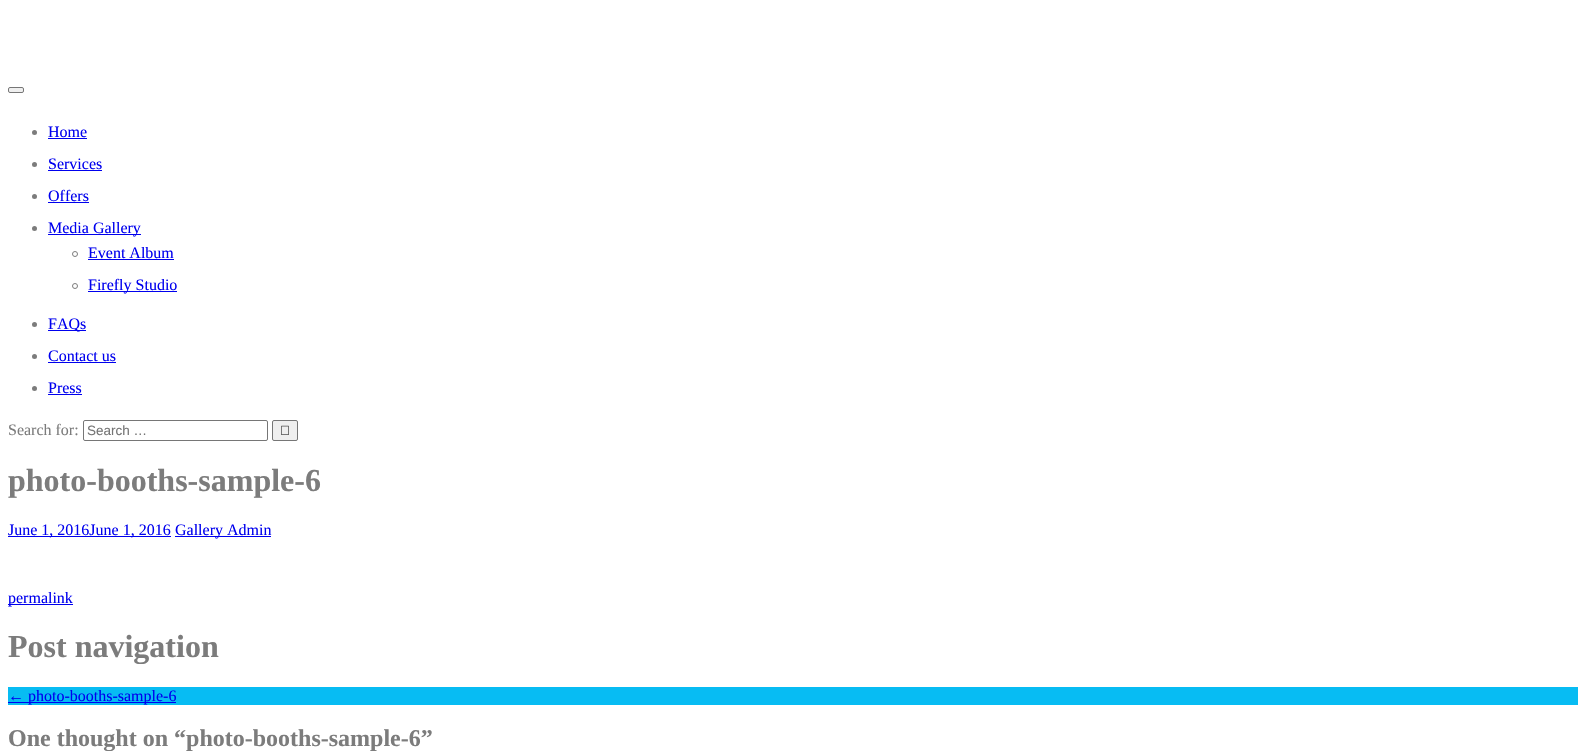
#include "include/core/SkBlurTypes.h"
#include "include/core/SkCanvas.h"
#include "include/core/SkData.h"
#include "include/core/SkFont.h"
#include "include/core/SkFontMgr.h"
#include "include/core/SkImage.h"
#include "include/core/SkMaskFilter.h"
#include "include/core/SkPaint.h"
#include "include/core/SkPathBuilder.h"
#include "include/core/SkTextBlob.h"
#include "include/effects/SkDashPathEffect.h"
#include "include/effects/SkGradientShader.h"
#include "include/utils/SkParsePath.h"

extern sk_sp<SkFontMgr> fontMgr;

void draw(SkCanvas* canvas) {
  SkPaint p;
  p.setAntiAlias(true);
  canvas->clear(SK_ColorWHITE);
  p.setColor(SkColorSetRGB(239, 239, 239));
  canvas->drawRoundRect(SkRect::MakeLTRB(8.5f, 87.5f, 23.5f, 92.5f), 1.5f, 1.5f, p);
  p.setStyle(SkPaint::kStroke_Style);
  p.setStrokeWidth(1);
  p.setColor(SkColorSetRGB(118, 118, 118));
  canvas->drawRoundRect(SkRect::MakeLTRB(8.5f, 87.5f, 23.5f, 92.5f), 1.5f, 1.5f, p);
  p.setStyle(SkPaint::kFill_Style);
  p.setColor(SkColorSetRGB(124, 124, 124));
  canvas->drawCircle(34.5f, 132.5f, 2.5f, p);
  p.setColor(SkColorSetRGB(0, 0, 238));
  canvas->drawRect(SkRect::MakeLTRB(48, 138, 87, 139), p);
  p.setColor(SkColorSetRGB(124, 124, 124));
  canvas->drawCircle(34.5f, 164.5f, 2.5f, p);
  p.setColor(SkColorSetRGB(0, 0, 238));
  canvas->drawRect(SkRect::MakeLTRB(48, 170, 102, 171), p);
  p.setColor(SkColorSetRGB(124, 124, 124));
  canvas->drawCircle(34.5f, 196.5f, 2.5f, p);
  p.setColor(SkColorSetRGB(0, 0, 238));
  canvas->drawRect(SkRect::MakeLTRB(48, 202, 89, 203), p);
  p.setColor(SkColorSetRGB(124, 124, 124));
  canvas->drawCircle(34.5f, 228.5f, 2.5f, p);
  p.setColor(SkColorSetRGB(0, 0, 238));
  canvas->drawRect(SkRect::MakeLTRB(48, 234, 141, 235), p);
  p.setStyle(SkPaint::kStroke_Style);
  p.setColor(SkColorSetRGB(124, 124, 124));
  canvas->drawCircle(75, 254, 2.5f, p);
  p.setStyle(SkPaint::kFill_Style);
  p.setColor(SkColorSetRGB(0, 0, 238));
  canvas->drawRect(SkRect::MakeLTRB(88, 259, 174, 260), p);
  p.setStyle(SkPaint::kStroke_Style);
  p.setColor(SkColorSetRGB(124, 124, 124));
  canvas->drawCircle(75, 286, 2.5f, p);
  p.setStyle(SkPaint::kFill_Style);
  p.setColor(SkColorSetRGB(0, 0, 238));
  canvas->drawRect(SkRect::MakeLTRB(88, 291, 177, 292), p);
  p.setColor(SkColorSetRGB(124, 124, 124));
  canvas->drawCircle(34.5f, 324.5f, 2.5f, p);
  p.setColor(SkColorSetRGB(0, 0, 238));
  canvas->drawRect(SkRect::MakeLTRB(48, 330, 86, 331), p);
  p.setColor(SkColorSetRGB(124, 124, 124));
  canvas->drawCircle(34.5f, 356.5f, 2.5f, p);
  p.setColor(SkColorSetRGB(0, 0, 238));
  canvas->drawRect(SkRect::MakeLTRB(48, 362, 116, 363), p);
  p.setColor(SkColorSetRGB(124, 124, 124));
  canvas->drawCircle(34.5f, 388.5f, 2.5f, p);
  p.setColor(SkColorSetRGB(0, 0, 238));
  canvas->drawRect(SkRect::MakeLTRB(48, 394, 82, 395), p);
  p.setStyle(SkPaint::kStroke_Style);
  p.setColor(SkColorSetRGB(118, 118, 118));
  canvas->drawRoundRect(SkRect::MakeLTRB(83.5f, 420.5f, 267.5f, 440.5f), 1.5f, 1.5f, p);
  p.setStyle(SkPaint::kFill_Style);
  p.setColor(SkColorSetRGB(239, 239, 239));
  canvas->drawRoundRect(SkRect::MakeLTRB(272.5f, 420.5f, 297.5f, 440.5f), 1.5f, 1.5f, p);
  p.setStyle(SkPaint::kStroke_Style);
  p.setColor(SkColorSetRGB(118, 118, 118));
  canvas->drawRoundRect(SkRect::MakeLTRB(272.5f, 420.5f, 297.5f, 440.5f), 1.5f, 1.5f, p);
  canvas->drawImageRect(SkImages::DeferredFromEncodedData(SkData::MakeFromFileName("images/1.png")), SkRect::MakeLTRB(281, 425, 289, 435), SkSamplingOptions());
  p.setStyle(SkPaint::kFill_Style);
  p.setColor(SkColorSetRGB(0, 0, 238));
  canvas->drawRect(SkRect::MakeLTRB(8, 536, 171, 537), p);
  canvas->drawRect(SkRect::MakeLTRB(175, 536, 271, 537), p);
  canvas->drawRect(SkRect::MakeLTRB(8, 604, 73, 605), p);
  p.setColor(SkColorSetRGB(7, 188, 243));
  canvas->drawRect(SkRect::MakeLTRB(8, 687, 1578, 705), p);
  p.setColor(SkColorSetRGB(0, 0, 238));
  canvas->drawRect(SkRect::MakeLTRB(8, 702, 176, 703), p);
  SkFont font1(fontMgr->matchFamilyStyle("Liberation Serif", SkFontStyle::Normal()), 16);
  font1.setSubpixel(true);
  canvas->drawString("Home", 48, 137, font1, p);
  canvas->drawString("Services", 48, 169, font1, p);
  canvas->drawString("Offers", 48, 201, font1, p);
  canvas->drawString("Media Gallery", 48, 233, font1, p);
  canvas->drawString("Event Album", 88, 258, font1, p);
  canvas->drawString("Firefly Studio", 88, 290, font1, p);
  canvas->drawString("FAQs", 48, 329, font1, p);
  canvas->drawString("Contact us", 48, 361, font1, p);
  canvas->drawString("Press", 48, 393, font1, p);
  p.setColor(SkColorSetRGB(124, 124, 124));
  canvas->drawString("Search for:", 8, 435, font1, p);
  SkFont font2(fontMgr->matchFamilyStyle("Liberation Sans", SkFontStyle::Normal()), 13.5f);
  font2.setSubpixel(true);
  p.setColor(SkColorSetRGB(117, 117, 117));
  canvas->drawString("Search …", 87, 435, font2, p);
  SkFont font3(fontMgr->matchFamilyStyle("Liberation Serif", SkFontStyle::Bold()), 32);
  font3.setSubpixel(true);
  p.setColor(SkColorSetRGB(124, 124, 124));
  canvas->drawString("photo-booths-sample-6", 8, 491, font3, p);
  p.setColor(SkColorSetRGB(0, 0, 238));
  canvas->drawString("June 1, 2016June 1, 2016", 8, 535, font1, p);
  canvas->drawString("Gallery Admin", 175, 535, font1, p);
  canvas->drawString("permalink", 8, 603, font1, p);
  p.setColor(SkColorSetRGB(124, 124, 124));
  canvas->drawString("Post navigation", 8, 657, font3, p);
  p.setColor(SkColorSetRGB(0, 0, 238));
  canvas->drawString("← photo-booths-sample-6", 8, 701, font1, p);
  SkFont font4(fontMgr->matchFamilyStyle("Liberation Serif", SkFontStyle::Bold()), 24);
  font4.setSubpixel(true);
  p.setColor(SkColorSetRGB(124, 124, 124));
  canvas->drawString("One thought on “photo-booths-sample-6”", 8, 746, font4, p);
}
